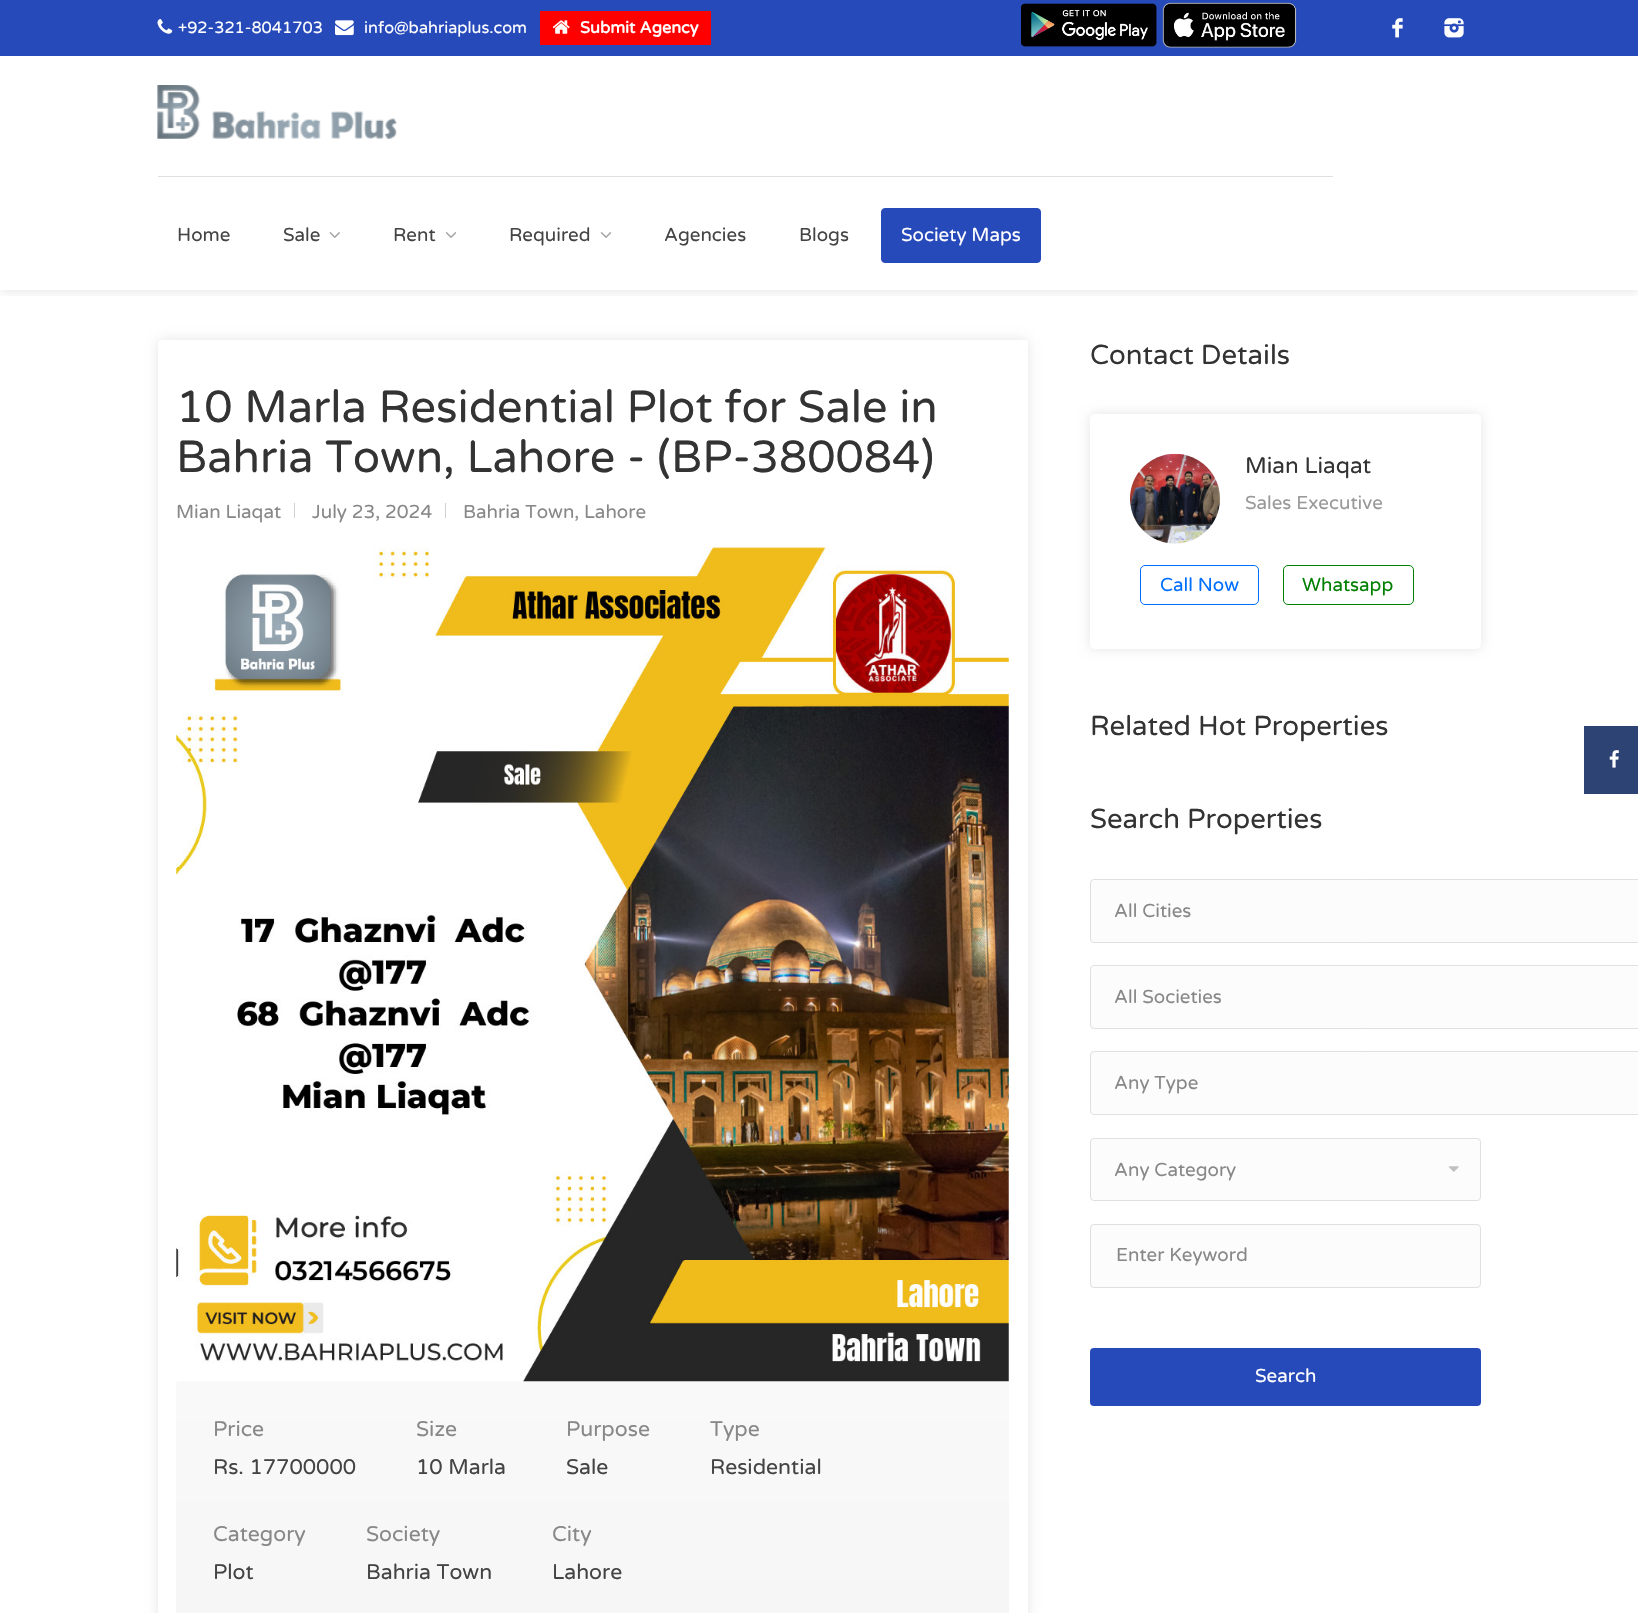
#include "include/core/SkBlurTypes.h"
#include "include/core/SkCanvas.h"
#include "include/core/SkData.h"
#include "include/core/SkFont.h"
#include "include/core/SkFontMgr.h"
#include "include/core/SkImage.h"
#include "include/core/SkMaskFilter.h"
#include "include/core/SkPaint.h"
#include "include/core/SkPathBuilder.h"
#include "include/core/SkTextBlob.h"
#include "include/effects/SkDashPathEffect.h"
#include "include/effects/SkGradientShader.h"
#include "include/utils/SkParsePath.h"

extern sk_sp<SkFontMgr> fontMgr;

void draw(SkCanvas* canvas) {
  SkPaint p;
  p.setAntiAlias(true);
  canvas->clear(SK_ColorWHITE);
  canvas->save();
  canvas->clipRect(SkRect::MakeLTRB(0, 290, 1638, 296));
  p.setColor(SkColorSetARGB(31, 0, 0, 0));
  p.setMaskFilter(SkMaskFilter::MakeBlur(kNormal_SkBlurStyle, 6));
  canvas->drawRect(SkRect::MakeLTRB(0, 56, 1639, 290), p);
  p.setMaskFilter(nullptr);
  canvas->restore();
  p.setColor(SkColorSetRGB(39, 74, 187));
  canvas->drawRect(SkRect::MakeLTRB(0, 0, 1638, 56), p);
  canvas->drawImageRect(SkImages::DeferredFromEncodedData(SkData::MakeFromFileName("images/1.png")), SkRect::MakeLTRB(157, 19, 173, 34), SkSamplingOptions());
  canvas->drawImageRect(SkImages::DeferredFromEncodedData(SkData::MakeFromFileName("images/2.png")), SkRect::MakeLTRB(335, 20, 354, 36), SkSamplingOptions());
  p.setColor(SkColorSetRGB(255, 0, 0));
  canvas->drawRect(SkRect::MakeLTRB(540, 11, 711, 45), p);
  canvas->drawImageRect(SkImages::DeferredFromEncodedData(SkData::MakeFromFileName("images/3.png")), SkRect::MakeLTRB(552, 20, 570, 34), SkSamplingOptions());
  canvas->drawImageRect(SkImages::DeferredFromEncodedData(SkData::MakeFromFileName("images/4.png")), SkRect::MakeLTRB(1021, 3, 1157, 47), SkSamplingOptions());
  canvas->drawImageRect(SkImages::DeferredFromEncodedData(SkData::MakeFromFileName("images/5.png")), SkRect::MakeLTRB(1162, 2, 1297, 48), SkSamplingOptions());
  canvas->drawImageRect(SkImages::DeferredFromEncodedData(SkData::MakeFromFileName("images/6.png")), SkRect::MakeLTRB(1392, 18, 1403, 38), SkSamplingOptions());
  canvas->drawImageRect(SkImages::DeferredFromEncodedData(SkData::MakeFromFileName("images/7.png")), SkRect::MakeLTRB(1444, 18, 1464, 38), SkSamplingOptions());
  canvas->drawImageRect(SkImages::DeferredFromEncodedData(SkData::MakeFromFileName("images/8.png")), SkRect::MakeLTRB(157, 85, 397, 139), SkSamplingOptions());
  p.setColor(SkColorSetRGB(224, 224, 224));
  canvas->drawRect(SkRect::MakeLTRB(158, 176, 1333, 177), p);
  canvas->drawImageRect(SkImages::DeferredFromEncodedData(SkData::MakeFromFileName("images/9.png")), SkRect::MakeLTRB(329, 232, 340, 238), SkSamplingOptions());
  canvas->drawImageRect(SkImages::DeferredFromEncodedData(SkData::MakeFromFileName("images/10.png")), SkRect::MakeLTRB(445, 232, 457, 238), SkSamplingOptions());
  canvas->drawImageRect(SkImages::DeferredFromEncodedData(SkData::MakeFromFileName("images/10.png")), SkRect::MakeLTRB(600, 232, 612, 238), SkSamplingOptions());
  p.setColor(SkColorSetRGB(39, 74, 187));
  canvas->drawRoundRect(SkRect::MakeLTRB(881.5f, 208.5f, 1040.5f, 262.5f), 3.5f, 3.5f, p);
  p.setStyle(SkPaint::kStroke_Style);
  p.setStrokeWidth(1);
  canvas->drawRoundRect(SkRect::MakeLTRB(881.5f, 208.5f, 1040.5f, 262.5f), 3.5f, 3.5f, p);
  p.setStyle(SkPaint::kFill_Style);
  p.setColor(SkColorSetARGB(26, 0, 0, 0));
  p.setMaskFilter(SkMaskFilter::MakeBlur(kNormal_SkBlurStyle, 6));
  canvas->drawRoundRect(SkRect::MakeLTRB(158, 340, 1028, 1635), 4, 4, p);
  p.setMaskFilter(nullptr);
  p.setColor(SK_ColorWHITE);
  canvas->drawRoundRect(SkRect::MakeLTRB(158, 340, 1028, 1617), 4, 4, p);
  p.setColor(SkColorSetRGB(208, 208, 208));
  canvas->drawRect(SkRect::MakeLTRB(294, 503, 295, 518), p);
  canvas->drawRect(SkRect::MakeLTRB(445, 503, 446, 518), p);
  {
    const SkColor colors[] = {SkColorSetRGB(249, 249, 249), SkColorSetRGB(246, 246, 246)};
    const float stops[] = {0, 1};
    const SkPoint ends[] = {{593, 1381}, {593, 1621}};
    p.setShader(SkGradientShader::MakeLinear(ends, colors, stops, 2, SkTileMode::kClamp));
    p.setAlpha(255);
  }
  canvas->drawRoundRect(SkRect::MakeLTRB(176, 1381, 1009, 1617), 4, 4, p);
  canvas->drawImageRect(SkImages::DeferredFromEncodedData(SkData::MakeFromFileName("images/11.png")), SkRect::MakeLTRB(176, 547, 1009, 1382), SkSamplingOptions());
  p.setShader(nullptr);
  p.setColor(SkColorSetARGB(26, 0, 0, 0));
  p.setMaskFilter(SkMaskFilter::MakeBlur(kNormal_SkBlurStyle, 6));
  canvas->drawRoundRect(SkRect::MakeLTRB(1090, 414, 1481, 649), 5, 5, p);
  p.setMaskFilter(nullptr);
  p.setColor(SK_ColorWHITE);
  canvas->drawRoundRect(SkRect::MakeLTRB(1090, 414, 1481, 649), 5, 5, p);
  canvas->drawImageRect(SkImages::DeferredFromEncodedData(SkData::MakeFromFileName("images/12.png")), SkRect::MakeLTRB(1130, 453, 1220, 544), SkSamplingOptions());
  p.setStyle(SkPaint::kStroke_Style);
  p.setColor(SkColorSetRGB(0, 110, 255));
  canvas->drawRoundRect(SkRect::MakeLTRB(1140.5f, 565.5f, 1258.5f, 604.5f), 4.5f, 4.5f, p);
  p.setColor(SkColorSetRGB(0, 128, 0));
  canvas->drawRoundRect(SkRect::MakeLTRB(1283.5f, 565.5f, 1413.5f, 604.5f), 4.5f, 4.5f, p);
  p.setStyle(SkPaint::kFill_Style);
  p.setColor(SkColorSetRGB(252, 252, 252));
  canvas->drawRoundRect(SkRect::MakeLTRB(1090.5f, 879.5f, 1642.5f, 942.5f), 3.5f, 3.5f, p);
  p.setStyle(SkPaint::kStroke_Style);
  p.setColor(SkColorSetRGB(224, 224, 224));
  canvas->drawRoundRect(SkRect::MakeLTRB(1090.5f, 879.5f, 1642.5f, 942.5f), 3.5f, 3.5f, p);
  p.setStyle(SkPaint::kFill_Style);
  p.setColor(SkColorSetRGB(252, 252, 252));
  canvas->drawRoundRect(SkRect::MakeLTRB(1090.5f, 965.5f, 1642.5f, 1028.5f), 3.5f, 3.5f, p);
  p.setStyle(SkPaint::kStroke_Style);
  p.setColor(SkColorSetRGB(224, 224, 224));
  canvas->drawRoundRect(SkRect::MakeLTRB(1090.5f, 965.5f, 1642.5f, 1028.5f), 3.5f, 3.5f, p);
  p.setStyle(SkPaint::kFill_Style);
  p.setColor(SkColorSetRGB(252, 252, 252));
  canvas->drawRoundRect(SkRect::MakeLTRB(1090.5f, 1051.5f, 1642.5f, 1114.5f), 3.5f, 3.5f, p);
  p.setStyle(SkPaint::kStroke_Style);
  p.setColor(SkColorSetRGB(224, 224, 224));
  canvas->drawRoundRect(SkRect::MakeLTRB(1090.5f, 1051.5f, 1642.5f, 1114.5f), 3.5f, 3.5f, p);
  p.setStyle(SkPaint::kFill_Style);
  p.setColor(SkColorSetRGB(252, 252, 252));
  canvas->drawRoundRect(SkRect::MakeLTRB(1090.5f, 1138.5f, 1480.5f, 1200.5f), 3.5f, 3.5f, p);
  p.setStyle(SkPaint::kStroke_Style);
  p.setColor(SkColorSetRGB(224, 224, 224));
  canvas->drawRoundRect(SkRect::MakeLTRB(1090.5f, 1138.5f, 1480.5f, 1200.5f), 3.5f, 3.5f, p);
  canvas->drawImageRect(SkImages::DeferredFromEncodedData(SkData::MakeFromFileName("images/13.png")), SkRect::MakeLTRB(1448, 1166, 1459, 1172), SkSamplingOptions());
  p.setStyle(SkPaint::kFill_Style);
  p.setColor(SkColorSetRGB(252, 252, 252));
  canvas->drawRoundRect(SkRect::MakeLTRB(1090.5f, 1224.5f, 1480.5f, 1287.5f), 3.5f, 3.5f, p);
  p.setStyle(SkPaint::kStroke_Style);
  p.setColor(SkColorSetRGB(224, 224, 224));
  canvas->drawRoundRect(SkRect::MakeLTRB(1090.5f, 1224.5f, 1480.5f, 1287.5f), 3.5f, 3.5f, p);
  p.setStyle(SkPaint::kFill_Style);
  p.setColor(SkColorSetRGB(39, 74, 187));
  canvas->drawRoundRect(SkRect::MakeLTRB(1090, 1348, 1481, 1406), 4, 4, p);
  p.setColor(SkColorSetRGB(45, 67, 115));
  canvas->drawRect(SkRect::MakeLTRB(1584, 726, 1638, 794), p);
  canvas->drawImageRect(SkImages::DeferredFromEncodedData(SkData::MakeFromFileName("images/14.png")), SkRect::MakeLTRB(1609, 750, 1619, 768), SkSamplingOptions());
  SkFont font1(fontMgr->matchFamilyStyle("Varela Round", SkFontStyle::Normal()), 16.25f);
  font1.setSubpixel(true);
  p.setColor(SK_ColorWHITE);
  canvas->drawString("+92-321-8041703", 178, 33, font1, p);
  canvas->drawString("info@bahriaplus.com", 364, 33, font1, p);
  SkFont font2(fontMgr->matchFamilyStyle("Varela Round", SkFontStyle::Bold()), 16.25f);
  font2.setSubpixel(true);
  canvas->drawString("Submit Agency", 580, 33, font2, p);
  SkFont font3(fontMgr->matchFamilyStyle("Varela Round", SkFontStyle::Normal()), 18.75f);
  font3.setSubpixel(true);
  p.setColor(SkColorSetRGB(68, 68, 68));
  canvas->drawString("Home", 177, 241, font3, p);
  canvas->drawString("Sale", 283, 241, font3, p);
  canvas->drawString("Rent", 393, 241, font3, p);
  canvas->drawString("Required", 509, 241, font3, p);
  canvas->drawString("Agencies", 664, 241, font3, p);
  canvas->drawString("Blogs", 799, 241, font3, p);
  p.setColor(SK_ColorWHITE);
  canvas->drawString("Society Maps", 901, 241, font3, p);
  SkFont font4(fontMgr->matchFamilyStyle("Varela Round", SkFontStyle::Normal()), 45);
  font4.setSubpixel(true);
  p.setColor(SkColorSetRGB(51, 51, 51));
  canvas->drawString("10 Marla Residential Plot for Sale in", 176, 422, font4, p);
  canvas->drawString("Bahria Town, Lahore - (BP-380084)", 176, 472, font4, p);
  p.setColor(SkColorSetRGB(136, 136, 136));
  canvas->drawString("Mian Liaqat", 176, 518, font3, p);
  canvas->drawString("July 23, 2024", 312, 518, font3, p);
  canvas->drawString("Bahria Town, Lahore", 463, 518, font3, p);
  SkFont font5(fontMgr->matchFamilyStyle("Varela Round", SkFontStyle::Normal()), 21.25f);
  font5.setSubpixel(true);
  canvas->drawString("Price", 213, 1436, font5, p);
  p.setColor(SkColorSetRGB(68, 68, 68));
  canvas->drawString("Rs. 17700000", 213, 1474, font5, p);
  p.setColor(SkColorSetRGB(136, 136, 136));
  canvas->drawString("Size", 416, 1436, font5, p);
  p.setColor(SkColorSetRGB(68, 68, 68));
  canvas->drawString("10 Marla", 416, 1474, font5, p);
  p.setColor(SkColorSetRGB(136, 136, 136));
  canvas->drawString("Purpose", 566, 1436, font5, p);
  p.setColor(SkColorSetRGB(68, 68, 68));
  canvas->drawString("Sale", 566, 1474, font5, p);
  p.setColor(SkColorSetRGB(136, 136, 136));
  canvas->drawString("Type", 710, 1436, font5, p);
  p.setColor(SkColorSetRGB(68, 68, 68));
  canvas->drawString("Residential", 710, 1474, font5, p);
  p.setColor(SkColorSetRGB(136, 136, 136));
  canvas->drawString("Category", 213, 1541, font5, p);
  p.setColor(SkColorSetRGB(68, 68, 68));
  canvas->drawString("Plot", 213, 1579, font5, p);
  p.setColor(SkColorSetRGB(136, 136, 136));
  canvas->drawString("Society", 366, 1541, font5, p);
  p.setColor(SkColorSetRGB(68, 68, 68));
  canvas->drawString("Bahria Town", 366, 1579, font5, p);
  p.setColor(SkColorSetRGB(136, 136, 136));
  canvas->drawString("City", 552, 1541, font5, p);
  p.setColor(SkColorSetRGB(68, 68, 68));
  canvas->drawString("Lahore", 552, 1579, font5, p);
  SkFont font6(fontMgr->matchFamilyStyle("Varela Round", SkFontStyle::Normal()), 27.5f);
  font6.setSubpixel(true);
  p.setColor(SkColorSetRGB(51, 51, 51));
  canvas->drawString("Contact Details", 1090, 364, font6, p);
  SkFont font7(fontMgr->matchFamilyStyle("Varela Round", SkFontStyle::Normal()), 22.5f);
  font7.setSubpixel(true);
  canvas->drawString("Mian Liaqat", 1245, 473, font7, p);
  p.setColor(SkColorSetRGB(153, 153, 153));
  canvas->drawString("Sales Executive", 1245, 509, font3, p);
  p.setColor(SkColorSetRGB(0, 110, 255));
  canvas->drawString("Call Now", 1160, 591, font3, p);
  p.setColor(SkColorSetRGB(0, 128, 0));
  canvas->drawString("Whatsapp", 1302, 591, font3, p);
  p.setColor(SkColorSetRGB(51, 51, 51));
  canvas->drawString("Related Hot Properties", 1090, 735, font6, p);
  canvas->drawString("Search Properties", 1090, 828, font6, p);
  p.setColor(SkColorSetRGB(136, 136, 136));
  canvas->drawString("All Cities", 1114, 917, font3, p);
  canvas->drawString("All Societies", 1114, 1003, font3, p);
  canvas->drawString("Any Type", 1114, 1089, font3, p);
  canvas->drawString("Any Category", 1114, 1176, font3, p);
  canvas->drawString("Enter Keyword", 1116, 1261, font3, p);
  p.setColor(SK_ColorWHITE);
  canvas->drawString("Search", 1255, 1382, font3, p);
}
